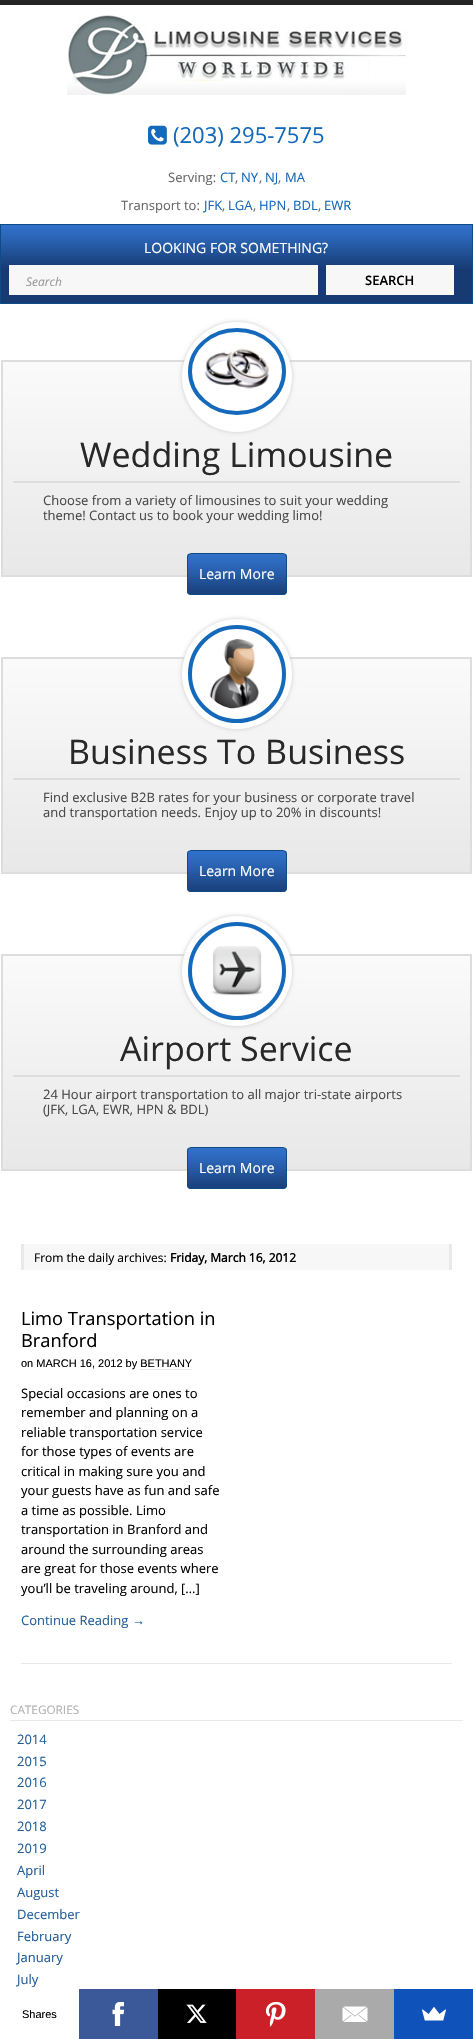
#include "include/core/SkBlurTypes.h"
#include "include/core/SkCanvas.h"
#include "include/core/SkData.h"
#include "include/core/SkFont.h"
#include "include/core/SkFontMgr.h"
#include "include/core/SkImage.h"
#include "include/core/SkMaskFilter.h"
#include "include/core/SkPaint.h"
#include "include/core/SkPathBuilder.h"
#include "include/core/SkTextBlob.h"
#include "include/effects/SkDashPathEffect.h"
#include "include/effects/SkGradientShader.h"
#include "include/utils/SkParsePath.h"

extern sk_sp<SkFontMgr> fontMgr;

void draw(SkCanvas* canvas) {
  SkPaint p;
  p.setAntiAlias(true);
  canvas->clear(SkColorSetRGB(37, 37, 37));
  p.setColor(SK_ColorWHITE);
  canvas->drawRect(SkRect::MakeLTRB(0, 5, 473, 1989), p);
  canvas->drawImageRect(SkImages::DeferredFromEncodedData(SkData::MakeFromFileName("images/1.png")), SkRect::MakeLTRB(67, 15, 406, 95), SkSamplingOptions());
  canvas->drawImageRect(SkImages::DeferredFromEncodedData(SkData::MakeFromFileName("images/2.png")), SkRect::MakeLTRB(148, 125, 167, 145), SkSamplingOptions());
  p.setColor(SkColorSetRGB(22, 58, 113));
  canvas->drawRect(SkRect::MakeLTRB(1, 269, 472, 303), p);
  canvas->drawImageRect(SkImages::DeferredFromEncodedData(SkData::MakeFromFileName("images/3.png")), SkRect::MakeLTRB(1, 225, 472, 269), SkSamplingOptions());
  p.setStyle(SkPaint::kStroke_Style);
  p.setStrokeWidth(1);
  p.setColor(SkColorSetRGB(15, 75, 134));
  canvas->drawRect(SkRect::MakeLTRB(0.5f, 224.5f, 472.5f, 303.5f), p);
  p.setStyle(SkPaint::kFill_Style);
  p.setColor(SkColorSetRGB(247, 247, 247));
  canvas->drawRect(SkRect::MakeLTRB(9, 265, 318, 295), p);
  canvas->drawRect(SkRect::MakeLTRB(326, 265, 454, 295), p);
  canvas->drawImageRect(SkImages::DeferredFromEncodedData(SkData::MakeFromFileName("images/4.png")), SkRect::MakeLTRB(3, 362, 470, 575), SkSamplingOptions());
  p.setStyle(SkPaint::kStroke_Style);
  p.setStrokeWidth(2);
  p.setColor(SkColorSetRGB(221, 221, 221));
  canvas->drawRect(SkRect::MakeLTRB(2, 361, 471, 576), p);
  p.setStyle(SkPaint::kFill_Style);
  p.setColor(SkColorSetRGB(204, 204, 204));
  p.setMaskFilter(SkMaskFilter::MakeBlur(kNormal_SkBlurStyle, 2));
  canvas->drawRoundRect(SkRect::MakeLTRB(182, 322, 292, 432), 55, 55, p);
  p.setMaskFilter(nullptr);
  p.setColor(SK_ColorWHITE);
  canvas->drawCircle(237, 377, 55, p);
  p.setStyle(SkPaint::kStroke_Style);
  p.setStrokeWidth(4);
  p.setColor(SkColorSetRGB(21, 105, 187));
  canvas->drawPath(SkPathBuilder().moveTo(237, 330).cubicTo(263, 330, 284, 348.5f, 284, 371.5f).cubicTo(284, 394.5f, 263, 413, 237, 413).cubicTo(211, 413, 190, 394.5f, 190, 371.5f).cubicTo(190, 348.5f, 211, 330, 237, 330).close().detach(), p);
  canvas->drawImageRect(SkImages::DeferredFromEncodedData(SkData::MakeFromFileName("images/5.png")), SkRect::MakeLTRB(204, 348, 269, 389), SkSamplingOptions());
  p.setStyle(SkPaint::kFill_Style);
  p.setColor(SkColorSetRGB(221, 221, 221));
  canvas->drawRect(SkRect::MakeLTRB(13, 481, 460, 483), p);
  canvas->drawImageRect(SkImages::DeferredFromEncodedData(SkData::MakeFromFileName("images/6.png")), SkRect::MakeLTRB(187, 554, 287, 595), SkSamplingOptions());
  p.setStyle(SkPaint::kStroke_Style);
  p.setStrokeWidth(1);
  p.setColor(SkColorSetRGB(15, 75, 134));
  canvas->drawRoundRect(SkRect::MakeLTRB(187.5f, 553.5f, 286.5f, 594.5f), 3.5f, 3.5f, p);
  canvas->drawImageRect(SkImages::DeferredFromEncodedData(SkData::MakeFromFileName("images/4.png")), SkRect::MakeLTRB(3, 659, 470, 872), SkSamplingOptions());
  p.setStrokeWidth(2);
  p.setColor(SkColorSetRGB(221, 221, 221));
  canvas->drawRect(SkRect::MakeLTRB(2, 658, 471, 873), p);
  p.setStyle(SkPaint::kFill_Style);
  p.setColor(SkColorSetRGB(204, 204, 204));
  p.setMaskFilter(SkMaskFilter::MakeBlur(kNormal_SkBlurStyle, 2));
  canvas->drawRoundRect(SkRect::MakeLTRB(182, 619, 292, 729), 55, 55, p);
  p.setMaskFilter(nullptr);
  p.setColor(SK_ColorWHITE);
  canvas->drawCircle(237, 674, 55, p);
  p.setStyle(SkPaint::kStroke_Style);
  p.setStrokeWidth(4);
  p.setColor(SkColorSetRGB(21, 105, 187));
  canvas->drawCircle(237, 674, 47, p);
  canvas->drawImageRect(SkImages::DeferredFromEncodedData(SkData::MakeFromFileName("images/7.png")), SkRect::MakeLTRB(209, 639, 259, 709), SkSamplingOptions());
  p.setStyle(SkPaint::kFill_Style);
  p.setColor(SkColorSetRGB(221, 221, 221));
  canvas->drawRect(SkRect::MakeLTRB(13, 778, 460, 780), p);
  canvas->drawImageRect(SkImages::DeferredFromEncodedData(SkData::MakeFromFileName("images/6.png")), SkRect::MakeLTRB(187, 851, 287, 892), SkSamplingOptions());
  p.setStyle(SkPaint::kStroke_Style);
  p.setStrokeWidth(1);
  p.setColor(SkColorSetRGB(15, 75, 134));
  canvas->drawRoundRect(SkRect::MakeLTRB(187.5f, 850.5f, 286.5f, 891.5f), 3.5f, 3.5f, p);
  canvas->drawImageRect(SkImages::DeferredFromEncodedData(SkData::MakeFromFileName("images/4.png")), SkRect::MakeLTRB(3, 956, 470, 1169), SkSamplingOptions());
  p.setStrokeWidth(2);
  p.setColor(SkColorSetRGB(221, 221, 221));
  canvas->drawRect(SkRect::MakeLTRB(2, 955, 471, 1170), p);
  p.setStyle(SkPaint::kFill_Style);
  p.setColor(SkColorSetRGB(204, 204, 204));
  p.setMaskFilter(SkMaskFilter::MakeBlur(kNormal_SkBlurStyle, 2));
  canvas->drawRoundRect(SkRect::MakeLTRB(182, 916, 292, 1026), 55, 55, p);
  p.setMaskFilter(nullptr);
  p.setColor(SK_ColorWHITE);
  canvas->drawCircle(237, 971, 55, p);
  p.setStyle(SkPaint::kStroke_Style);
  p.setStrokeWidth(4);
  p.setColor(SkColorSetRGB(21, 105, 187));
  canvas->drawCircle(237, 971, 47, p);
  canvas->drawImageRect(SkImages::DeferredFromEncodedData(SkData::MakeFromFileName("images/8.png")), SkRect::MakeLTRB(211, 946, 263, 996), SkSamplingOptions());
  p.setStyle(SkPaint::kFill_Style);
  p.setColor(SkColorSetRGB(221, 221, 221));
  canvas->drawRect(SkRect::MakeLTRB(13, 1075, 460, 1077), p);
  canvas->drawImageRect(SkImages::DeferredFromEncodedData(SkData::MakeFromFileName("images/6.png")), SkRect::MakeLTRB(187, 1148, 287, 1189), SkSamplingOptions());
  p.setStyle(SkPaint::kStroke_Style);
  p.setStrokeWidth(1);
  p.setColor(SkColorSetRGB(15, 75, 134));
  canvas->drawRoundRect(SkRect::MakeLTRB(187.5f, 1147.5f, 286.5f, 1188.5f), 3.5f, 3.5f, p);
  p.setStyle(SkPaint::kFill_Style);
  p.setColor(SkColorSetRGB(247, 247, 247));
  canvas->drawRect(SkRect::MakeLTRB(24, 1244, 449, 1270), p);
  p.setColor(SkColorSetRGB(233, 233, 233));
  canvas->drawRect(SkRect::MakeLTRB(449, 1244, 452, 1270), p);
  canvas->drawRect(SkRect::MakeLTRB(21, 1244, 24, 1270), p);
  canvas->drawRect(SkRect::MakeLTRB(21, 1663, 452, 1664), p);
  canvas->drawRect(SkRect::MakeLTRB(10, 1720, 463, 1721), p);
  p.setColor(SK_ColorWHITE);
  canvas->drawRect(SkRect::MakeLTRB(0, 1989, 79, 2039), p);
  p.setColor(SkColorSetRGB(59, 89, 152));
  canvas->drawRect(SkRect::MakeLTRB(79, 1989, 158, 2039), p);
  canvas->drawImageRect(SkImages::DeferredFromEncodedData(SkData::MakeFromFileName("images/9.png")), SkRect::MakeLTRB(112, 2002, 124, 2026), SkSamplingOptions());
  p.setColor(SK_ColorBLACK);
  canvas->drawRect(SkRect::MakeLTRB(158, 1989, 236, 2039), p);
  canvas->drawImageRect(SkImages::DeferredFromEncodedData(SkData::MakeFromFileName("images/10.png")), SkRect::MakeLTRB(186, 2004, 207, 2023), SkSamplingOptions());
  p.setColor(SkColorSetRGB(203, 32, 39));
  canvas->drawRect(SkRect::MakeLTRB(236, 1989, 315, 2039), p);
  canvas->drawImageRect(SkImages::DeferredFromEncodedData(SkData::MakeFromFileName("images/11.png")), SkRect::MakeLTRB(266, 2002, 286, 2027), SkSamplingOptions());
  p.setColor(SkColorSetRGB(170, 170, 170));
  canvas->drawRect(SkRect::MakeLTRB(315, 1989, 394, 2039), p);
  canvas->drawImageRect(SkImages::DeferredFromEncodedData(SkData::MakeFromFileName("images/12.png")), SkRect::MakeLTRB(342, 2006, 368, 2022), SkSamplingOptions());
  p.setColor(SkColorSetRGB(15, 82, 186));
  canvas->drawRect(SkRect::MakeLTRB(394, 1989, 473, 2039), p);
  canvas->drawImageRect(SkImages::DeferredFromEncodedData(SkData::MakeFromFileName("images/13.png")), SkRect::MakeLTRB(422, 2007, 446, 2021), SkSamplingOptions());
  SkFont font1(fontMgr->matchFamilyStyle("Open Sans", SkFontStyle::Normal()), 22);
  font1.setSubpixel(true);
  p.setColor(SkColorSetRGB(21, 105, 187));
  canvas->drawString("(203) 295-7575", 173, 143, font1, p);
  SkFont font2(fontMgr->matchFamilyStyle("Open Sans", SkFontStyle::Normal()), 13);
  font2.setSubpixel(true);
  p.setColor(SkColorSetRGB(102, 102, 102));
  canvas->drawString("Serving:", 168, 182, font2, p);
  p.setColor(SkColorSetRGB(21, 105, 187));
  canvas->drawString("CT", 220, 182, font2, p);
  p.setColor(SkColorSetRGB(102, 102, 102));
  canvas->drawString(",", 235, 182, font2, p);
  p.setColor(SkColorSetRGB(21, 105, 187));
  canvas->drawString("NY", 241, 182, font2, p);
  p.setColor(SkColorSetRGB(102, 102, 102));
  canvas->drawString(",", 259, 182, font2, p);
  p.setColor(SkColorSetRGB(21, 105, 187));
  canvas->drawString("NJ", 265, 182, font2, p);
  p.setColor(SkColorSetRGB(102, 102, 102));
  canvas->drawString(",", 278, 182, font2, p);
  p.setColor(SkColorSetRGB(21, 105, 187));
  canvas->drawString("MA", 285, 182, font2, p);
  p.setColor(SkColorSetRGB(102, 102, 102));
  canvas->drawString("Transport to:", 121, 210, font2, p);
  p.setColor(SkColorSetRGB(21, 105, 187));
  canvas->drawString("JFK", 204, 210, font2, p);
  p.setColor(SkColorSetRGB(102, 102, 102));
  canvas->drawString(",", 222, 210, font2, p);
  p.setColor(SkColorSetRGB(21, 105, 187));
  canvas->drawString("LGA", 228, 210, font2, p);
  p.setColor(SkColorSetRGB(102, 102, 102));
  canvas->drawString(",", 253, 210, font2, p);
  p.setColor(SkColorSetRGB(21, 105, 187));
  canvas->drawString("HPN", 259, 210, font2, p);
  p.setColor(SkColorSetRGB(102, 102, 102));
  canvas->drawString(",", 287, 210, font2, p);
  p.setColor(SkColorSetRGB(21, 105, 187));
  canvas->drawString("BDL", 293, 210, font2, p);
  p.setColor(SkColorSetRGB(102, 102, 102));
  canvas->drawString(",", 318, 210, font2, p);
  p.setColor(SkColorSetRGB(21, 105, 187));
  canvas->drawString("EWR", 324, 210, font2, p);
  SkFont font3(fontMgr->matchFamilyStyle("Open Sans", SkFontStyle::Normal()), 14);
  font3.setSubpixel(true);
  p.setColor(SK_ColorWHITE);
  canvas->drawString("LOOKING FOR SOMETHING?", 144, 253, font3, p);
  SkFont font4(fontMgr->matchFamilyStyle("Open Sans", SkFontStyle::Italic()), 12);
  font4.setSubpixel(true);
  p.setColor(SkColorSetRGB(153, 153, 153));
  canvas->drawString("Search", 26, 286, font4, p);
  SkFont font5(fontMgr->matchFamilyStyle("Open Sans", SkFontStyle(600, SkFontStyle::kNormal_Width, SkFontStyle::kUpright_Slant)), 13);
  font5.setSubpixel(true);
  p.setColor(SK_ColorBLACK);
  canvas->drawString("SEARCH", 365, 285, font5, p);
  SkFont font6(fontMgr->matchFamilyStyle("Open Sans", SkFontStyle::Normal()), 34);
  font6.setSubpixel(true);
  p.setColor(SkColorSetRGB(40, 40, 40));
  canvas->drawString("Wedding Limousine", 80, 467, font6, p);
  p.setColor(SkColorSetRGB(72, 72, 72));
  canvas->drawString("Choose from a variety of limousines to suit your wedding", 43, 505, font2, p);
  canvas->drawString("theme! Contact us to book your wedding limo!", 43, 520, font2, p);
  p.setColor(SK_ColorWHITE);
  canvas->drawString("Learn More", 199, 579, font3, p);
  p.setColor(SkColorSetRGB(40, 40, 40));
  canvas->drawString("Business To Business", 68, 764, font6, p);
  p.setColor(SkColorSetRGB(72, 72, 72));
  canvas->drawString("Find exclusive B2B rates for your business or corporate travel", 43, 802, font2, p);
  canvas->drawString("and transportation needs. Enjoy up to 20% in discounts!", 43, 817, font2, p);
  p.setColor(SK_ColorWHITE);
  canvas->drawString("Learn More", 199, 876, font3, p);
  p.setColor(SkColorSetRGB(40, 40, 40));
  canvas->drawString("Airport Service", 120, 1061, font6, p);
  p.setColor(SkColorSetRGB(72, 72, 72));
  canvas->drawString("24 Hour airport transportation to all major tri-state airports", 43, 1099, font2, p);
  canvas->drawString("(JFK, LGA, EWR, HPN & BDL)", 43, 1114, font2, p);
  p.setColor(SK_ColorWHITE);
  canvas->drawString("Learn More", 199, 1173, font3, p);
  SkFont font7(fontMgr->matchFamilyStyle("Open Sans", SkFontStyle::Normal()), 12);
  font7.setSubpixel(true);
  p.setColor(SK_ColorBLACK);
  canvas->drawString("From the daily archives:", 34, 1262, font7, p);
  SkFont font8(fontMgr->matchFamilyStyle("Open Sans", SkFontStyle::Bold()), 12);
  font8.setSubpixel(true);
  canvas->drawString("Friday, March 16, 2012", 170, 1262, font8, p);
  SkFont font9(fontMgr->matchFamilyStyle("Open Sans", SkFontStyle::Normal()), 18.25f);
  font9.setSubpixel(true);
  canvas->drawString("Limo Transportation in", 21, 1325, font9, p);
  canvas->drawString("Branford", 21, 1347, font9, p);
  SkFont font10(fontMgr->matchFamilyStyle("Liberation Sans", SkFontStyle::Normal()), 11);
  font10.setSubpixel(true);
  canvas->drawString("on MARCH 16, 2012 by BETHANY", 21, 1367, font10, p);
  p.setColor(SkColorSetRGB(233, 233, 233));
  canvas->drawRect(SkRect::MakeLTRB(140, 1369, 192, 1370), p);
  p.setColor(SK_ColorBLACK);
  canvas->drawString("Special occasions are ones to", 21, 1398, font2, p);
  canvas->drawString("remember and planning on a", 21, 1417, font2, p);
  canvas->drawString("reliable transportation service", 21, 1437, font2, p);
  canvas->drawString("for those types of events are", 21, 1456, font2, p);
  canvas->drawString("critical in making sure you and", 21, 1476, font2, p);
  canvas->drawString("your guests have as fun and safe", 21, 1495, font2, p);
  canvas->drawString("a time as possible. Limo", 21, 1515, font2, p);
  canvas->drawString("transportation in Branford and", 21, 1534, font2, p);
  canvas->drawString("around the surrounding areas", 21, 1554, font2, p);
  canvas->drawString("are great for those events where", 21, 1573, font2, p);
  canvas->drawString("you’ll be traveling around, […]", 21, 1593, font2, p);
  p.setColor(SkColorSetRGB(34, 94, 155));
  canvas->drawString("Continue Reading", 21, 1625, font2, p);
  SkFont font11(fontMgr->matchFamilyStyle("Liberation Sans", SkFontStyle::Normal()), 13);
  font11.setSubpixel(true);
  canvas->drawString("→", 132, 1625, font11, p);
  SkFont font12(fontMgr->matchFamilyStyle("Open Sans", SkFontStyle::Normal()), 11.75f);
  font12.setSubpixel(true);
  p.setColor(SkColorSetRGB(175, 175, 175));
  canvas->drawString("CATEGORIES", 10, 1714, font12, p);
  p.setColor(SkColorSetRGB(34, 94, 155));
  canvas->drawString("2014", 17, 1744, font2, p);
  canvas->drawString("2015", 17, 1766, font2, p);
  canvas->drawString("2016", 17, 1787, font2, p);
  canvas->drawString("2017", 17, 1809, font2, p);
  canvas->drawString("2018", 17, 1831, font2, p);
  canvas->drawString("2019", 17, 1853, font2, p);
  canvas->drawString("April", 17, 1875, font2, p);
  canvas->drawString("August", 17, 1897, font2, p);
  canvas->drawString("December", 17, 1919, font2, p);
  canvas->drawString("February", 17, 1941, font2, p);
  canvas->drawString("January", 17, 1962, font2, p);
  canvas->drawString("July", 17, 1984, font2, p);
  p.setColor(SK_ColorBLACK);
  canvas->drawString("Shares", 22, 2018, font10, p);
}
